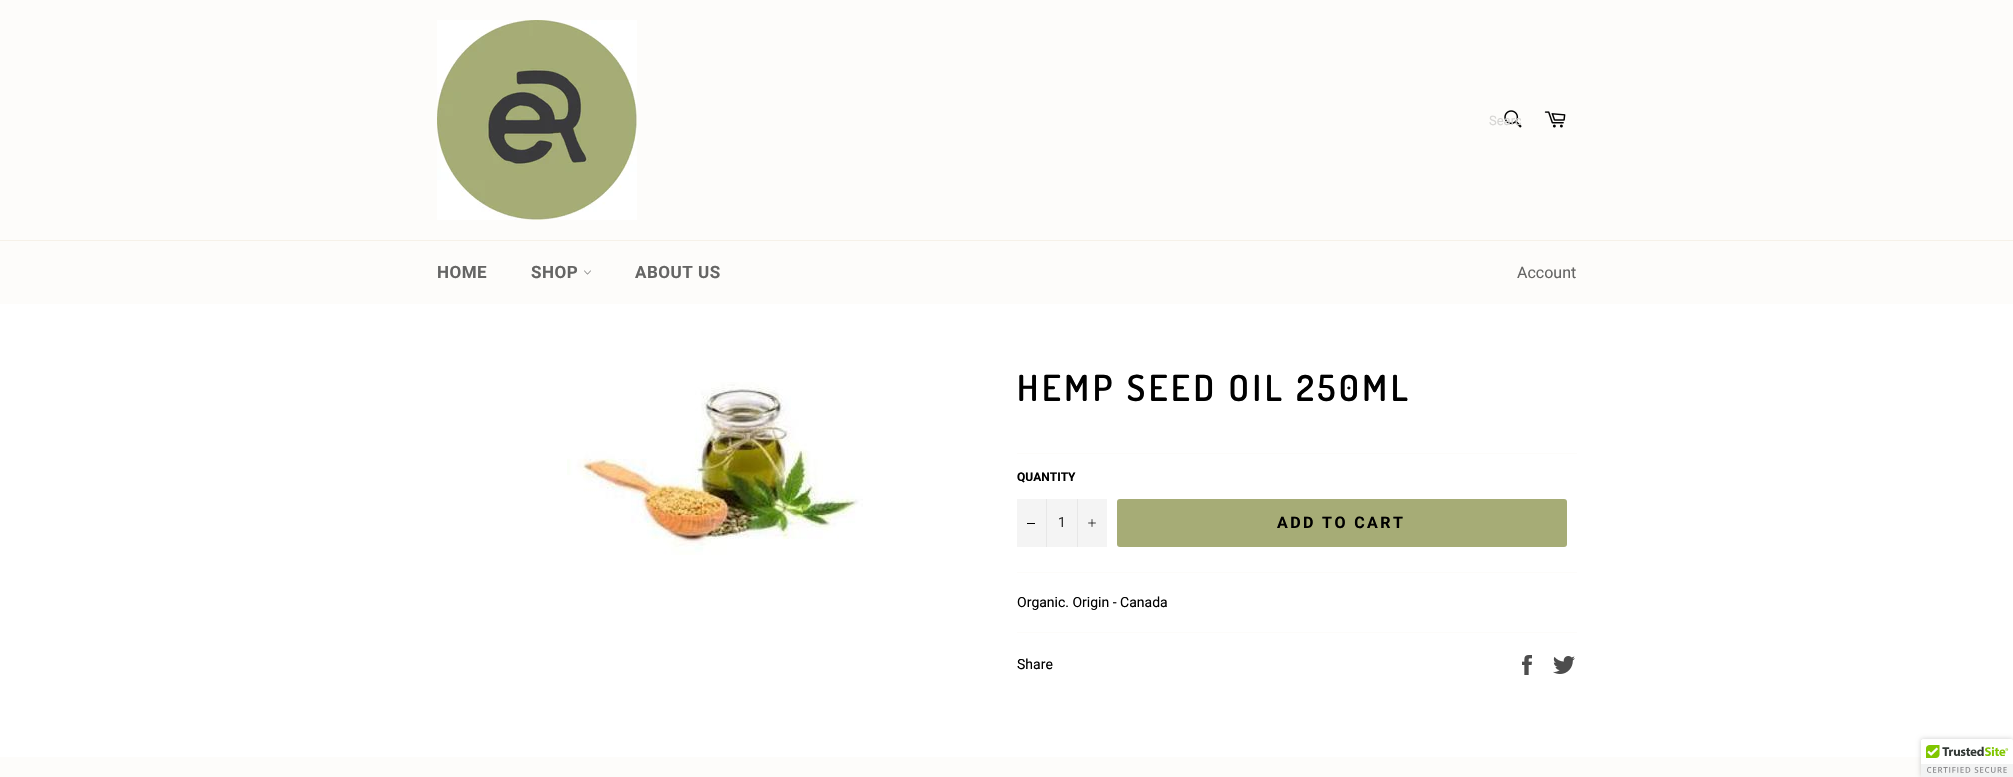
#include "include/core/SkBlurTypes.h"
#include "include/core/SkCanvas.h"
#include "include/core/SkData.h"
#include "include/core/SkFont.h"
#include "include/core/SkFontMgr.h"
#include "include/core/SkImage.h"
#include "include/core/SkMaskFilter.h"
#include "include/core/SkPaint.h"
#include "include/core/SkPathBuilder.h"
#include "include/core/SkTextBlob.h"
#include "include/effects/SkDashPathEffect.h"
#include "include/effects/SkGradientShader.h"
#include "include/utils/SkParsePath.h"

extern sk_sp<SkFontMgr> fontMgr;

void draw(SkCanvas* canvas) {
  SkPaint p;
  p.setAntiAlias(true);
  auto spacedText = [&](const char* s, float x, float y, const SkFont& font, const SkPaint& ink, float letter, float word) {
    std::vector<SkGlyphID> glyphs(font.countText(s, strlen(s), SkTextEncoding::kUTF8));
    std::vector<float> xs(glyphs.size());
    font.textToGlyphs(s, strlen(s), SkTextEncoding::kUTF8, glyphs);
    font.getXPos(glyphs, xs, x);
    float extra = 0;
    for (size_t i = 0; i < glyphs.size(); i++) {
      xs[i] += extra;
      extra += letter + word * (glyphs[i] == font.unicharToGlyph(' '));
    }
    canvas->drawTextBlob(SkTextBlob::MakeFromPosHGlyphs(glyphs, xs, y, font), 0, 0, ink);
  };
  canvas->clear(SkColorSetRGB(253, 252, 250));
  canvas->drawImageRect(SkImages::DeferredFromEncodedData(SkData::MakeFromFileName("images/1.png")), SkRect::MakeLTRB(437, 20, 637, 220), SkSamplingOptions());
  canvas->drawImageRect(SkImages::DeferredFromEncodedData(SkData::MakeFromFileName("images/2.png")), SkRect::MakeLTRB(1504, 110, 1522, 128), SkSamplingOptions());
  canvas->drawImageRect(SkImages::DeferredFromEncodedData(SkData::MakeFromFileName("images/3.png")), SkRect::MakeLTRB(1544, 111, 1566, 128), SkSamplingOptions());
  p.setColor(SkColorSetRGB(246, 241, 232));
  canvas->drawRect(SkRect::MakeLTRB(0, 240, 2013, 241), p);
  canvas->drawImageRect(SkImages::DeferredFromEncodedData(SkData::MakeFromFileName("images/4.png")), SkRect::MakeLTRB(584, 270, 591, 275), SkSamplingOptions());
  p.setColor(SK_ColorWHITE);
  canvas->drawRect(SkRect::MakeLTRB(0, 304, 2013, 757), p);
  canvas->drawImageRect(SkImages::DeferredFromEncodedData(SkData::MakeFromFileName("images/5.png")), SkRect::MakeLTRB(567, 382, 863, 555), SkSamplingOptions());
  p.setColor(SkColorSetRGB(253, 252, 250));
  canvas->drawRect(SkRect::MakeLTRB(1017, 453, 1577, 454), p);
  p.setColor(SkColorSetRGB(244, 244, 244));
  canvas->drawRect(SkRect::MakeLTRB(1017, 499, 1107, 547), p);
  p.setColor(SkColorSetRGB(231, 231, 231));
  canvas->drawRect(SkRect::MakeLTRB(1046, 499, 1047, 547), p);
  p.setColor(SK_ColorBLACK);
  canvas->drawRect(SkRect::MakeLTRB(1027, 523, 1035, 524), p);
  p.setColor(SkColorSetRGB(231, 231, 231));
  canvas->drawRect(SkRect::MakeLTRB(1077, 499, 1078, 547), p);
  canvas->drawImageRect(SkImages::DeferredFromEncodedData(SkData::MakeFromFileName("images/6.png")), SkRect::MakeLTRB(1088, 519, 1096, 527), SkSamplingOptions());
  p.setColor(SkColorSetRGB(166, 172, 118));
  canvas->drawRoundRect(SkRect::MakeLTRB(1117, 499, 1567, 547), 3, 3, p);
  p.setColor(SkColorSetRGB(253, 252, 250));
  canvas->drawRect(SkRect::MakeLTRB(1017, 572, 1577, 573), p);
  canvas->drawRect(SkRect::MakeLTRB(1017, 632, 1577, 633), p);
  canvas->drawImageRect(SkImages::DeferredFromEncodedData(SkData::MakeFromFileName("images/7.png")), SkRect::MakeLTRB(1522, 655, 1532, 675), SkSamplingOptions());
  canvas->drawImageRect(SkImages::DeferredFromEncodedData(SkData::MakeFromFileName("images/8.png")), SkRect::MakeLTRB(1553, 656, 1575, 674), SkSamplingOptions());
  p.setColor(SkColorSetARGB(51, 0, 0, 0));
  p.setMaskFilter(SkMaskFilter::MakeBlur(kNormal_SkBlurStyle, 2.5f));
  canvas->drawRoundRect(SkRect::MakeLTRB(1921, 739, 2013, 777), 2, 2, p);
  p.setMaskFilter(nullptr);
  p.setColor(SK_ColorWHITE);
  canvas->drawPath(SkPathBuilder().moveTo(1923, 739).lineTo(2013, 739).lineTo(2013, 777).lineTo(1921, 777).lineTo(1921, 741).cubicTo(1921, 740, 1922, 739, 1923, 739).close().detach(), p);
  canvas->drawImageRect(SkImages::DeferredFromEncodedData(SkData::MakeFromFileName("images/9.png")), SkRect::MakeLTRB(1921, 739, 2013, 777), SkSamplingOptions());
  canvas->save();
  canvas->clipRect(SkRect::MakeLTRB(1489, 113, 1521, 128));
  SkFont font1(fontMgr->matchFamilyStyle("Roboto", SkFontStyle::Normal()), 13);
  font1.setSubpixel(true);
  p.setColor(SkColorSetRGB(214, 213, 211));
  canvas->drawString("Searc", 1489, 125, font1, p);
  canvas->restore();
  SkFont font2(fontMgr->matchFamilyStyle("Roboto", SkFontStyle::Bold()), 17);
  font2.setSubpixel(true);
  p.setColor(SkColorSetRGB(101, 101, 100));
  spacedText("HOME", 437, 278, font2, p, 0.5f, 0);
  spacedText("SHOP", 531, 278, font2, p, 0.5f, 0);
  spacedText("ABOUT US", 635, 278, font2, p, 0.5f, 0);
  SkFont font3(fontMgr->matchFamilyStyle("Roboto", SkFontStyle::Normal()), 16);
  font3.setSubpixel(true);
  canvas->drawString("Account", 1517, 278, font3, p);
  SkFont font4(fontMgr->matchFamilyStyle("Dosis", SkFontStyle(600, SkFontStyle::kNormal_Width, SkFontStyle::kUpright_Slant)), 36);
  font4.setSubpixel(true);
  p.setColor(SK_ColorBLACK);
  spacedText("HEMP SEED OIL 250ML", 1017, 401, font4, p, 3.6f, 0);
  SkFont font5(fontMgr->matchFamilyStyle("Roboto", SkFontStyle::Bold()), 12);
  font5.setSubpixel(true);
  canvas->drawString("QUANTITY", 1017, 481, font5, p);
  SkFont font6(fontMgr->matchFamilyStyle("Roboto", SkFontStyle::Normal()), 14);
  font6.setSubpixel(true);
  p.setColor(SkColorSetRGB(51, 51, 51));
  canvas->drawString("1", 1058, 527, font6, p);
  SkFont font7(fontMgr->matchFamilyStyle("Roboto", SkFontStyle::Bold()), 16);
  font7.setSubpixel(true);
  p.setColor(SK_ColorBLACK);
  spacedText("ADD TO CART", 1277, 528, font7, p, 2.4f, 0);
  canvas->drawString("Organic. Origin - Canada", 1017, 607, font6, p);
  canvas->drawString("Share", 1017, 669, font6, p);
}
